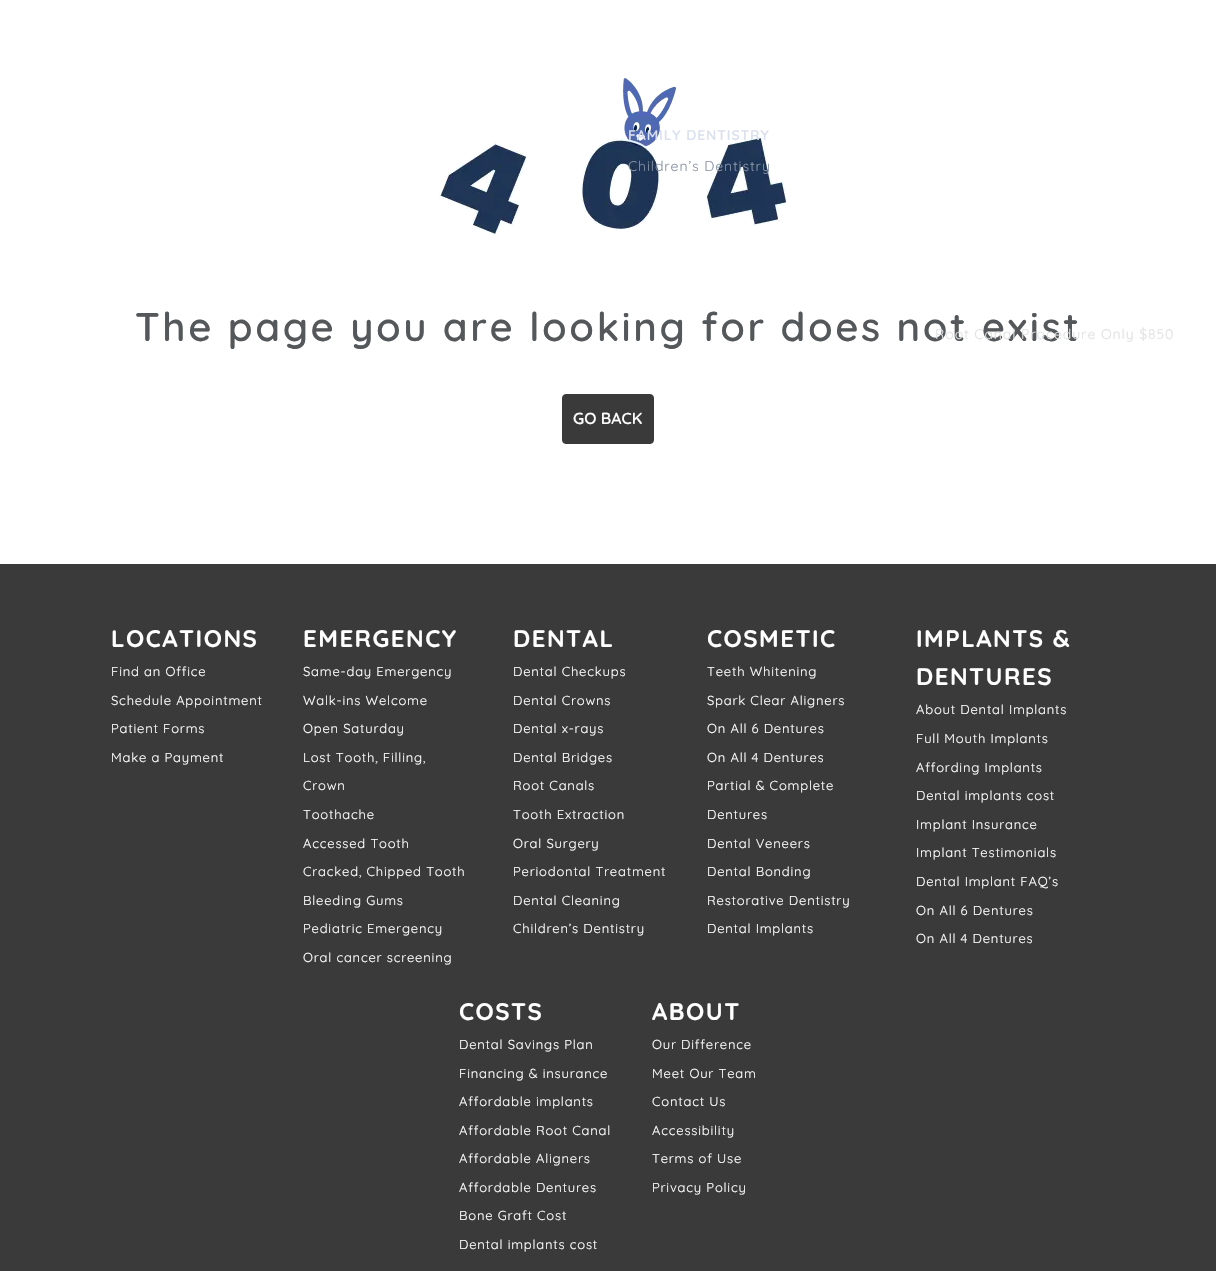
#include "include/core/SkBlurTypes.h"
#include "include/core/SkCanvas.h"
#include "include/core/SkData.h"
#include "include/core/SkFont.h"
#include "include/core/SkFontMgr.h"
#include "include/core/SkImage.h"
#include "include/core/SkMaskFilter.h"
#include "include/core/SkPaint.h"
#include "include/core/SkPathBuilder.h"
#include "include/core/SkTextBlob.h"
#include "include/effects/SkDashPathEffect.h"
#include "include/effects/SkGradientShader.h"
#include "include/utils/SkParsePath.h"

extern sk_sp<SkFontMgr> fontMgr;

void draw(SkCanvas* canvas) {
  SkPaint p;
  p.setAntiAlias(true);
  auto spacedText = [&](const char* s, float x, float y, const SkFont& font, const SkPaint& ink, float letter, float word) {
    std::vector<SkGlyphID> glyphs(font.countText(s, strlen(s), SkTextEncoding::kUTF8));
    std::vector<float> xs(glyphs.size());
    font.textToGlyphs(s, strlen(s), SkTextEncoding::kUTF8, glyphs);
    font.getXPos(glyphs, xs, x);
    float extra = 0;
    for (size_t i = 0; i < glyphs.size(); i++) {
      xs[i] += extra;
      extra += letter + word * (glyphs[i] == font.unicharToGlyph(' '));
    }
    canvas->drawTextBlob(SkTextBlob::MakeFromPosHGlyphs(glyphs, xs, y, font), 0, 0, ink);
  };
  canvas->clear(SK_ColorWHITE);
  canvas->drawImageRect(SkImages::DeferredFromEncodedData(SkData::MakeFromFileName("images/1.png")), SkRect::MakeLTRB(439, 78, 788, 236), SkSamplingOptions());
  p.setColor(SkColorSetRGB(57, 58, 57));
  canvas->drawRoundRect(SkRect::MakeLTRB(562.5f, 394.5f, 653.5f, 443.5f), 3.5f, 3.5f, p);
  p.setStyle(SkPaint::kStroke_Style);
  p.setStrokeWidth(1);
  canvas->drawRoundRect(SkRect::MakeLTRB(562.5f, 394.5f, 653.5f, 443.5f), 3.5f, 3.5f, p);
  p.setStyle(SkPaint::kFill_Style);
  canvas->drawRect(SkRect::MakeLTRB(0, 564, 1216, 1271), p);
  SkFont font1(fontMgr->matchFamilyStyle("Quicksand", SkFontStyle(600, SkFontStyle::kNormal_Width, SkFontStyle::kUpright_Slant)), 14);
  font1.setSubpixel(true);
  p.setColor(SkColorSetRGB(218, 224, 238));
  spacedText("FAMILY DENTISTRY", 628, 140, font1, p, 0.9f, 0);
  SkFont font2(fontMgr->matchFamilyStyle("Quicksand", SkFontStyle::Normal()), 14);
  font2.setSubpixel(true);
  p.setColor(SkColorSetRGB(135, 147, 165));
  spacedText("Children’s Dentistry", 628, 171, font2, p, 0.9f, 0);
  SkFont font3(fontMgr->matchFamilyStyle("Quicksand", SkFontStyle(600, SkFontStyle::kNormal_Width, SkFontStyle::kUpright_Slant)), 40);
  font3.setSubpixel(true);
  p.setColor(SkColorSetRGB(84, 88, 90));
  spacedText("The page you are looking for does not exist", 135, 341, font3, p, 2.6f, 0);
  p.setColor(SkColorSetRGB(225, 226, 226));
  spacedText("Root Canal Procedure Only $850", 935, 339, font2, p, 0.9f, 0);
  SkFont font4(fontMgr->matchFamilyStyle("Quicksand", SkFontStyle(600, SkFontStyle::kNormal_Width, SkFontStyle::kUpright_Slant)), 16);
  font4.setSubpixel(true);
  p.setColor(SK_ColorWHITE);
  canvas->drawString("GO BACK", 573, 424, font4, p);
  SkFont font5(fontMgr->matchFamilyStyle("Quicksand", SkFontStyle::Bold()), 24);
  font5.setSubpixel(true);
  spacedText("LOCATIONS", 111, 647, font5, p, 1.5f, 0);
  SkFont font6(fontMgr->matchFamilyStyle("Quicksand", SkFontStyle::Normal()), 13);
  font6.setSubpixel(true);
  spacedText("Find an Office", 111, 676, font6, p, 0.8f, 0);
  spacedText("Schedule Appointment", 111, 705, font6, p, 0.8f, 0);
  spacedText("Patient Forms", 111, 733, font6, p, 0.8f, 0);
  spacedText("Make a Payment", 111, 762, font6, p, 0.8f, 0);
  spacedText("EMERGENCY", 303, 647, font5, p, 1.5f, 0);
  spacedText("Same-day Emergency", 303, 676, font6, p, 0.8f, 0);
  spacedText("Walk-ins Welcome", 303, 705, font6, p, 0.8f, 0);
  spacedText("Open Saturday", 303, 733, font6, p, 0.8f, 0);
  spacedText("Lost Tooth, Filling,", 303, 762, font6, p, 0.8f, 0);
  spacedText("Crown", 303, 790, font6, p, 0.8f, 0);
  spacedText("Toothache", 303, 819, font6, p, 0.8f, 0);
  spacedText("Accessed Tooth", 303, 848, font6, p, 0.8f, 0);
  spacedText("Cracked, Chipped Tooth", 303, 876, font6, p, 0.8f, 0);
  spacedText("Bleeding Gums", 303, 905, font6, p, 0.8f, 0);
  spacedText("Pediatric Emergency", 303, 933, font6, p, 0.8f, 0);
  spacedText("Oral cancer screening", 303, 962, font6, p, 0.8f, 0);
  spacedText("DENTAL", 513, 647, font5, p, 1.5f, 0);
  spacedText("Dental Checkups", 513, 676, font6, p, 0.8f, 0);
  spacedText("Dental Crowns", 513, 705, font6, p, 0.8f, 0);
  spacedText("Dental x-rays", 513, 733, font6, p, 0.8f, 0);
  spacedText("Dental Bridges", 513, 762, font6, p, 0.8f, 0);
  spacedText("Root Canals", 513, 790, font6, p, 0.8f, 0);
  spacedText("Tooth Extraction", 513, 819, font6, p, 0.8f, 0);
  spacedText("Oral Surgery", 513, 848, font6, p, 0.8f, 0);
  spacedText("Periodontal Treatment", 513, 876, font6, p, 0.8f, 0);
  spacedText("Dental Cleaning", 513, 905, font6, p, 0.8f, 0);
  spacedText("Children’s Dentistry", 513, 933, font6, p, 0.8f, 0);
  spacedText("COSMETIC", 707, 647, font5, p, 1.5f, 0);
  spacedText("Teeth Whitening", 707, 676, font6, p, 0.8f, 0);
  spacedText("Spark Clear Aligners", 707, 705, font6, p, 0.8f, 0);
  spacedText("On All 6 Dentures", 707, 733, font6, p, 0.8f, 0);
  spacedText("On All 4 Dentures", 707, 762, font6, p, 0.8f, 0);
  spacedText("Partial & Complete", 707, 790, font6, p, 0.8f, 0);
  spacedText("Dentures", 707, 819, font6, p, 0.8f, 0);
  spacedText("Dental Veneers", 707, 848, font6, p, 0.8f, 0);
  spacedText("Dental Bonding", 707, 876, font6, p, 0.8f, 0);
  spacedText("Restorative Dentistry", 707, 905, font6, p, 0.8f, 0);
  spacedText("Dental Implants", 707, 933, font6, p, 0.8f, 0);
  spacedText("IMPLANTS &", 916, 647, font5, p, 1.5f, 0);
  spacedText("DENTURES", 916, 685, font5, p, 1.5f, 0);
  spacedText("About Dental Implants", 916, 714, font6, p, 0.8f, 0);
  spacedText("Full Mouth Implants", 916, 743, font6, p, 0.8f, 0);
  spacedText("Affording Implants", 916, 772, font6, p, 0.8f, 0);
  spacedText("Dental implants cost", 916, 800, font6, p, 0.8f, 0);
  spacedText("Implant Insurance", 916, 829, font6, p, 0.8f, 0);
  spacedText("Implant Testimonials", 916, 857, font6, p, 0.8f, 0);
  spacedText("Dental Implant FAQ’s", 916, 886, font6, p, 0.8f, 0);
  spacedText("On All 6 Dentures", 916, 915, font6, p, 0.8f, 0);
  spacedText("On All 4 Dentures", 916, 943, font6, p, 0.8f, 0);
  spacedText("COSTS", 459, 1020, font5, p, 1.5f, 0);
  spacedText("Dental Savings Plan", 459, 1049, font6, p, 0.8f, 0);
  spacedText("Financing & insurance", 459, 1078, font6, p, 0.8f, 0);
  spacedText("Affordable implants", 459, 1106, font6, p, 0.8f, 0);
  spacedText("Affordable Root Canal", 459, 1135, font6, p, 0.8f, 0);
  spacedText("Affordable Aligners", 459, 1163, font6, p, 0.8f, 0);
  spacedText("Affordable Dentures", 459, 1192, font6, p, 0.8f, 0);
  spacedText("Bone Graft Cost", 459, 1220, font6, p, 0.8f, 0);
  spacedText("Dental implants cost", 459, 1249, font6, p, 0.8f, 0);
  spacedText("ABOUT", 652, 1020, font5, p, 1.5f, 0);
  spacedText("Our Difference", 652, 1049, font6, p, 0.8f, 0);
  spacedText("Meet Our Team", 652, 1078, font6, p, 0.8f, 0);
  spacedText("Contact Us", 652, 1106, font6, p, 0.8f, 0);
  spacedText("Accessibility", 652, 1135, font6, p, 0.8f, 0);
  spacedText("Terms of Use", 652, 1163, font6, p, 0.8f, 0);
  spacedText("Privacy Policy", 652, 1192, font6, p, 0.8f, 0);
}
